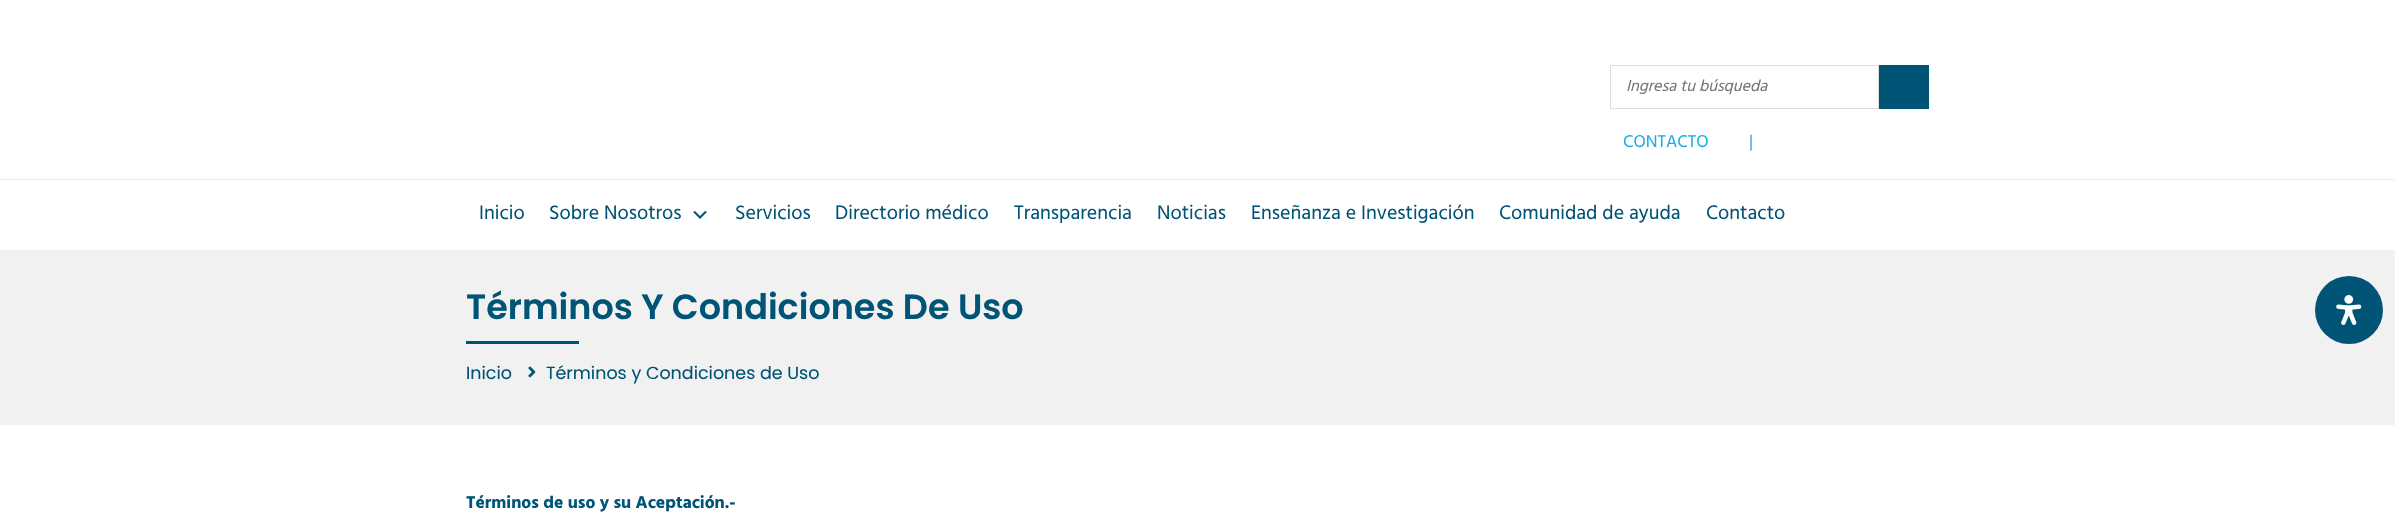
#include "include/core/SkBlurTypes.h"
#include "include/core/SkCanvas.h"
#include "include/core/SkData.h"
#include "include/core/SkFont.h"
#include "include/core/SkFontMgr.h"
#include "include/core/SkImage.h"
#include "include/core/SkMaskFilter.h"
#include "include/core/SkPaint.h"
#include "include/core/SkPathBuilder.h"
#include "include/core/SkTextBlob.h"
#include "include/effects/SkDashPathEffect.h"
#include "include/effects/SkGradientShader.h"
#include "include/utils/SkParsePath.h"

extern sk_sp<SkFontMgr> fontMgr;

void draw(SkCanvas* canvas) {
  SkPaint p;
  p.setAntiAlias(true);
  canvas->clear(SK_ColorWHITE);
  p.setColor(SkColorSetRGB(232, 232, 232));
  canvas->drawRect(SkRect::MakeLTRB(0, 179, 2395, 180), p);
  p.setStyle(SkPaint::kStroke_Style);
  p.setStrokeWidth(1);
  p.setColor(SkColorSetRGB(221, 221, 221));
  canvas->drawRect(SkRect::MakeLTRB(1610.5f, 65.5f, 1878.5f, 108.5f), p);
  p.setStyle(SkPaint::kFill_Style);
  p.setColor(SkColorSetRGB(0, 84, 118));
  canvas->drawRect(SkRect::MakeLTRB(1879, 65, 1929, 109), p);
  canvas->drawImageRect(SkImages::DeferredFromEncodedData(SkData::MakeFromFileName("images/1.png")), SkRect::MakeLTRB(693, 211, 707, 219), SkSamplingOptions());
  p.setColor(SkColorSetRGB(241, 241, 241));
  canvas->drawRect(SkRect::MakeLTRB(0, 250, 2395, 425), p);
  p.setColor(SkColorSetRGB(0, 84, 118));
  canvas->drawRect(SkRect::MakeLTRB(466, 341, 579, 344), p);
  canvas->drawImageRect(SkImages::DeferredFromEncodedData(SkData::MakeFromFileName("images/2.png")), SkRect::MakeLTRB(528, 366, 536, 378), SkSamplingOptions());
  canvas->drawCircle(2349, 310, 34, p);
  canvas->drawImageRect(SkImages::DeferredFromEncodedData(SkData::MakeFromFileName("images/3.png")), SkRect::MakeLTRB(2336, 295, 2362, 325), SkSamplingOptions());
  SkFont font1(fontMgr->matchFamilyStyle("Hind", SkFontStyle::Italic()), 16.25f);
  font1.setSubpixel(true);
  p.setColor(SkColorSetRGB(117, 117, 117));
  canvas->drawString("Ingresa tu búsqueda", 1626, 91, font1, p);
  SkFont font2(fontMgr->matchFamilyStyle("Hind", SkFontStyle::Normal()), 17.5f);
  font2.setSubpixel(true);
  p.setColor(SkColorSetRGB(30, 171, 229));
  canvas->drawString("CONTACTO", 1623, 147, font2, p);
  p.setColor(SkColorSetRGB(51, 169, 227));
  canvas->drawString("|", 1749, 147, font2, p);
  SkFont font3(fontMgr->matchFamilyStyle("Hind", SkFontStyle::Normal()), 20);
  font3.setSubpixel(true);
  p.setColor(SkColorSetRGB(0, 84, 118));
  canvas->drawString("Inicio", 479, 219, font3, p);
  canvas->drawString("Sobre Nosotros", 549, 219, font3, p);
  canvas->drawString("Servicios", 735, 219, font3, p);
  canvas->drawString("Directorio médico", 835, 219, font3, p);
  canvas->drawString("Transparencia", 1014, 219, font3, p);
  canvas->drawString("Noticias", 1157, 219, font3, p);
  canvas->drawString("Enseñanza e Investigación", 1251, 219, font3, p);
  canvas->drawString("Comunidad de ayuda", 1499, 219, font3, p);
  canvas->drawString("Contacto", 1706, 219, font3, p);
  SkFont font4(fontMgr->matchFamilyStyle("Poppins", SkFontStyle(600, SkFontStyle::kNormal_Width, SkFontStyle::kUpright_Slant)), 35);
  font4.setSubpixel(true);
  canvas->drawString("Términos Y Condiciones De Uso", 466, 319, font4, p);
  SkFont font5(fontMgr->matchFamilyStyle("Poppins", SkFontStyle::Normal()), 17.5f);
  font5.setSubpixel(true);
  canvas->drawString("Inicio", 466, 379, font5, p);
  canvas->drawString("Términos y Condiciones de Uso", 546, 379, font5, p);
  SkFont font6(fontMgr->matchFamilyStyle("Hind", SkFontStyle::Bold()), 17.5f);
  font6.setSubpixel(true);
  canvas->drawString("Términos de uso y su Aceptación.-", 466, 508, font6, p);
}
